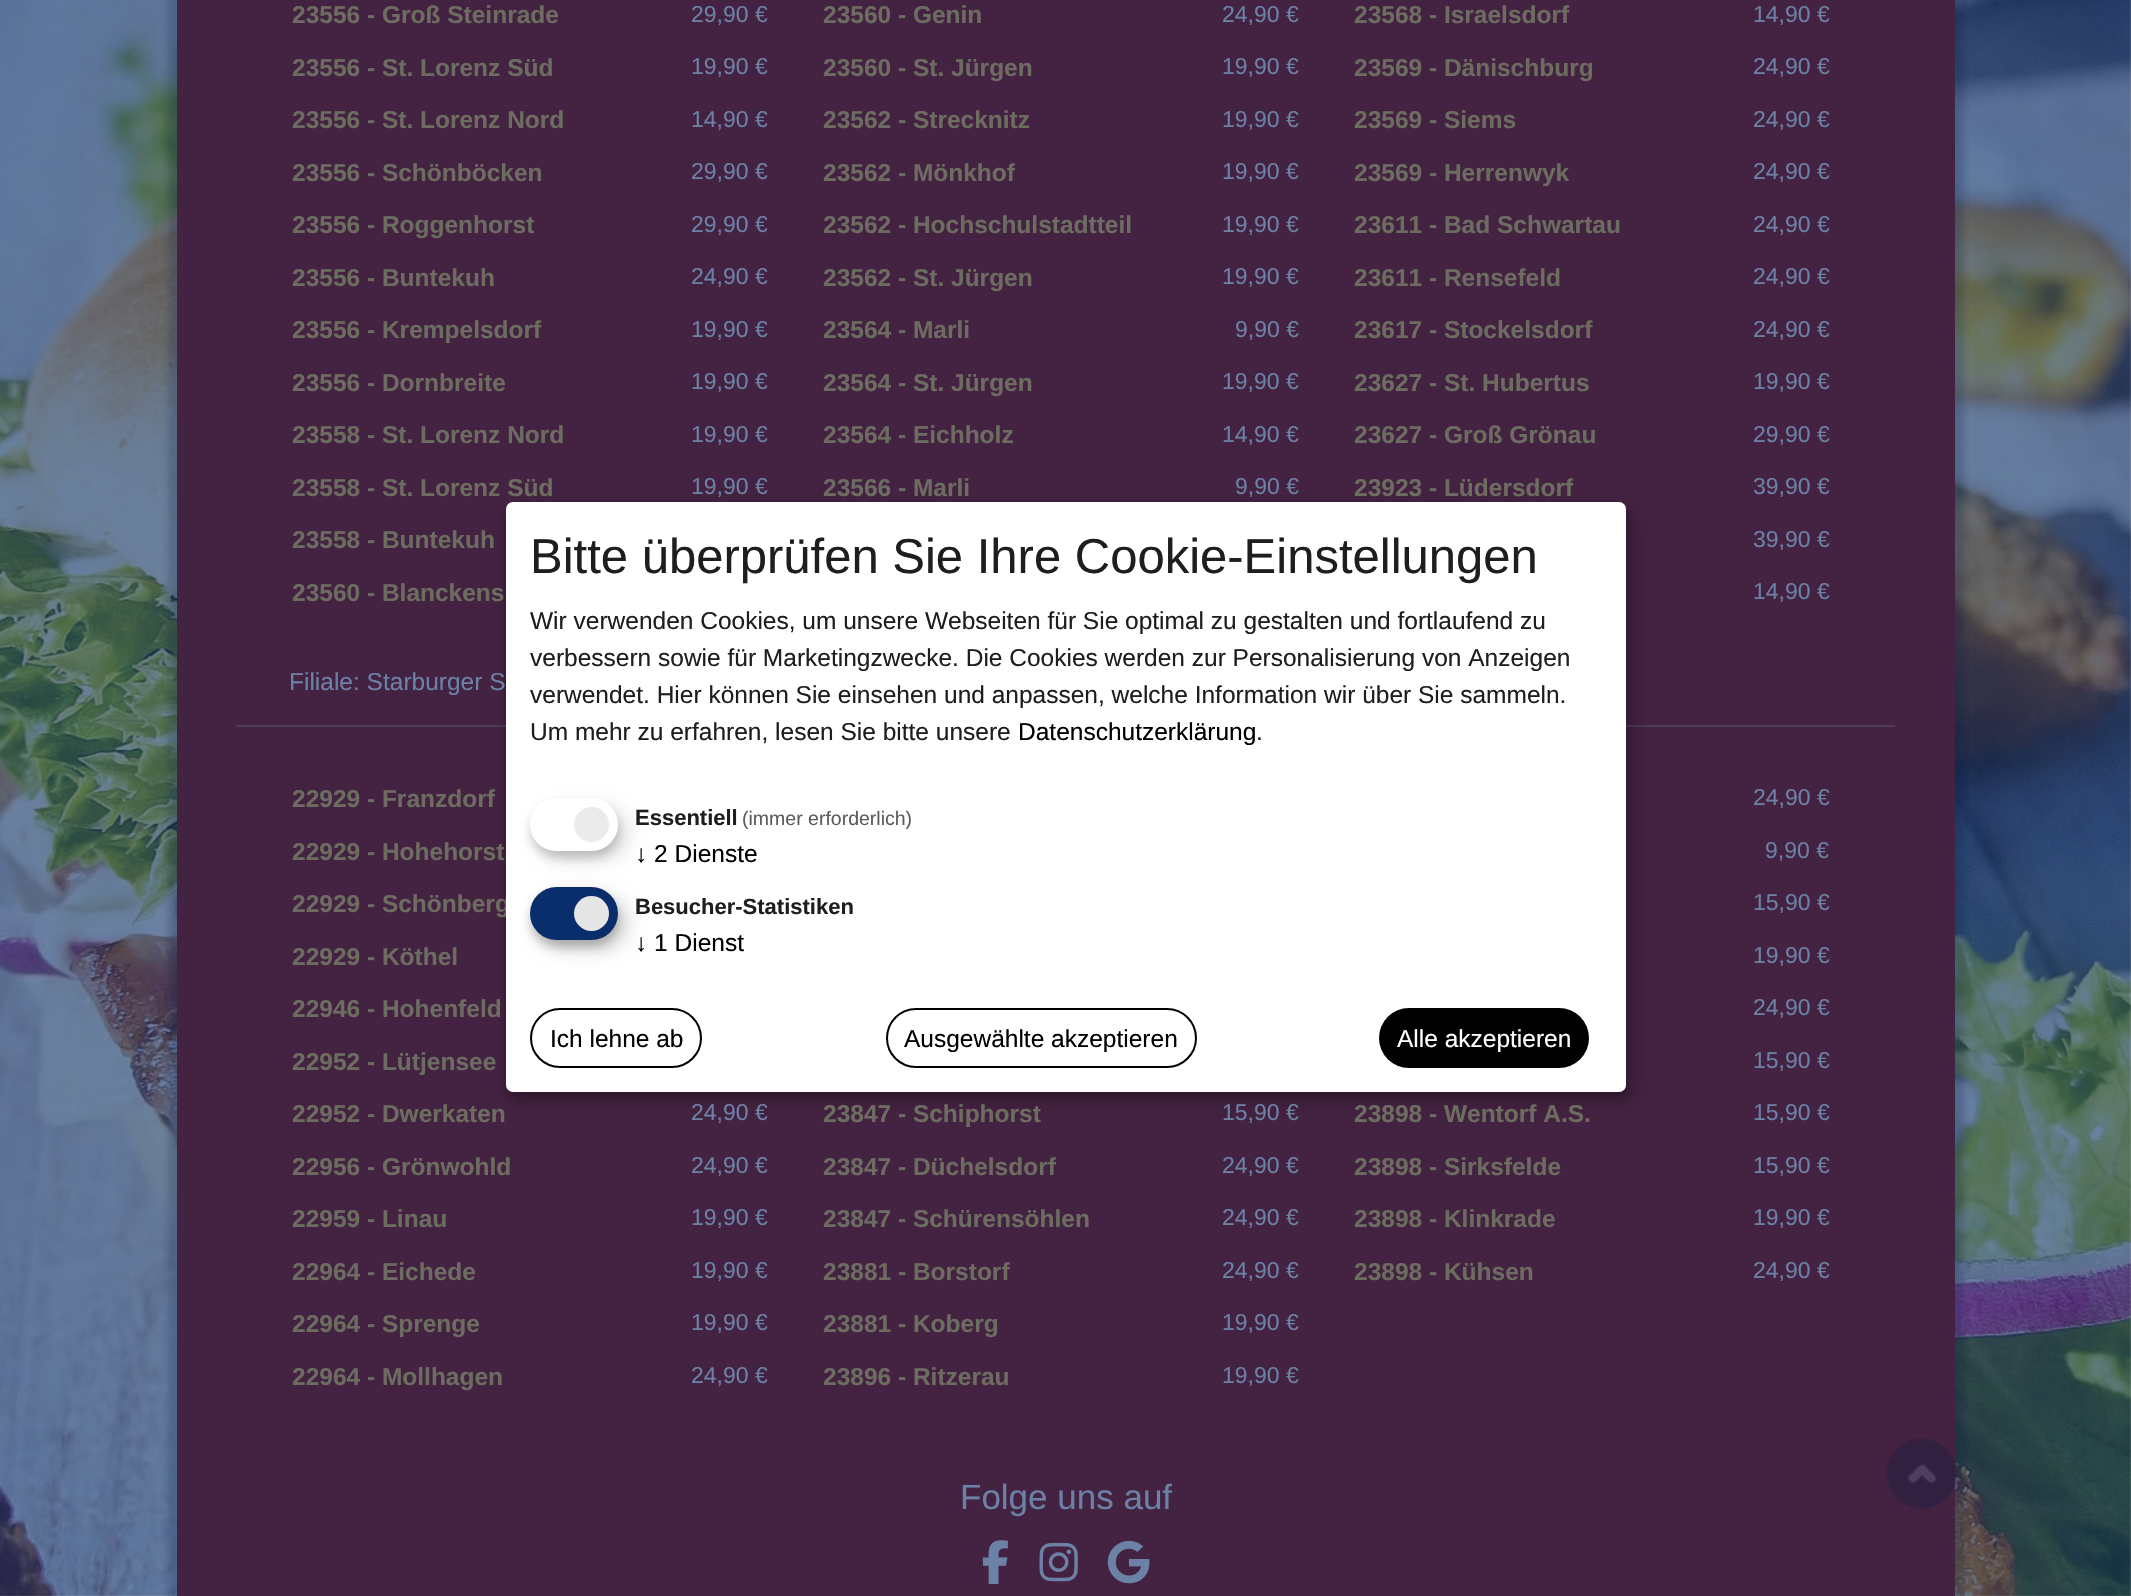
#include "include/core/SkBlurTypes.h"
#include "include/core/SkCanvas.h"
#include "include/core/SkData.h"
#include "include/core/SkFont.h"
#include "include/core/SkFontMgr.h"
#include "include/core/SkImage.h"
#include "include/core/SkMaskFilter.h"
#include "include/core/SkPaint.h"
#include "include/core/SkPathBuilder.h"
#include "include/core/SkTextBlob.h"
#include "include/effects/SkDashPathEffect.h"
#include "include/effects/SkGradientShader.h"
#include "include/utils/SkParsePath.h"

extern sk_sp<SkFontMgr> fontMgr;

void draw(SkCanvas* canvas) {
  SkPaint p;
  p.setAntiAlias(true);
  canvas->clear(SK_ColorWHITE);
  canvas->drawImageRect(SkImages::DeferredFromEncodedData(SkData::MakeFromFileName("images/1.png")), SkRect::MakeLTRB(0, 0, 2131, 1596), SkSamplingOptions());
  p.setColor(SkColorSetARGB(51, 6, 27, 64));
  p.setMaskFilter(SkMaskFilter::MakeBlur(kNormal_SkBlurStyle, 3.5f));
  canvas->drawRect(SkRect::MakeLTRB(168, -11, 1964, 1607), p);
  p.setMaskFilter(nullptr);
  p.setColor(SkColorSetRGB(68, 34, 65));
  canvas->drawRect(SkRect::MakeLTRB(177, 0, 1955, 1596), p);
  p.setColor(SkColorSetRGB(78, 58, 91));
  canvas->drawRect(SkRect::MakeLTRB(236, 725, 1895, 727), p);
  canvas->drawImageRect(SkImages::DeferredFromEncodedData(SkData::MakeFromFileName("images/2.png")), SkRect::MakeLTRB(982, 1540, 1008, 1584), SkSamplingOptions());
  canvas->drawImageRect(SkImages::DeferredFromEncodedData(SkData::MakeFromFileName("images/3.png")), SkRect::MakeLTRB(1039, 1542, 1078, 1582), SkSamplingOptions());
  canvas->drawImageRect(SkImages::DeferredFromEncodedData(SkData::MakeFromFileName("images/4.png")), SkRect::MakeLTRB(1107, 1540, 1150, 1584), SkSamplingOptions());
  canvas->drawImageRect(SkImages::DeferredFromEncodedData(SkData::MakeFromFileName("images/5.png")), SkRect::MakeLTRB(1886, 1438, 1957, 1509), SkSamplingOptions());
  p.setColor(SkColorSetARGB(48, 0, 0, 0));
  p.setMaskFilter(SkMaskFilter::MakeBlur(kNormal_SkBlurStyle, 9));
  canvas->drawRoundRect(SkRect::MakeLTRB(515, 511, 1635, 1101), 7, 7, p);
  p.setMaskFilter(nullptr);
  p.setColor(SkColorSetARGB(51, 0, 0, 0));
  p.setMaskFilter(SkMaskFilter::MakeBlur(kNormal_SkBlurStyle, 5));
  canvas->drawRoundRect(SkRect::MakeLTRB(506, 509, 1626, 1099), 7, 7, p);
  p.setMaskFilter(nullptr);
  SkFont font1(fontMgr->matchFamilyStyle("Liberation Sans", SkFontStyle::Bold()), 24.5f);
  font1.setSubpixel(true);
  p.setColor(SkColorSetRGB(108, 109, 96));
  canvas->drawString("23556 - Groß Steinrade", 292, 23, font1, p);
  SkFont font2(fontMgr->matchFamilyStyle("Liberation Sans", SkFontStyle::Normal()), 23);
  font2.setSubpixel(true);
  p.setColor(SkColorSetRGB(108, 129, 166));
  canvas->drawString("29,90 €", 691, 22, font2, p);
  p.setColor(SkColorSetRGB(108, 109, 96));
  canvas->drawString("23556 - St. Lorenz Süd", 292, 76, font1, p);
  p.setColor(SkColorSetRGB(108, 129, 166));
  canvas->drawString("19,90 €", 691, 74, font2, p);
  p.setColor(SkColorSetRGB(108, 109, 96));
  canvas->drawString("23556 - St. Lorenz Nord", 292, 128, font1, p);
  p.setColor(SkColorSetRGB(108, 129, 166));
  canvas->drawString("14,90 €", 691, 127, font2, p);
  p.setColor(SkColorSetRGB(108, 109, 96));
  canvas->drawString("23556 - Schönböcken", 292, 181, font1, p);
  p.setColor(SkColorSetRGB(108, 129, 166));
  canvas->drawString("29,90 €", 691, 179, font2, p);
  p.setColor(SkColorSetRGB(108, 109, 96));
  canvas->drawString("23556 - Roggenhorst", 292, 233, font1, p);
  p.setColor(SkColorSetRGB(108, 129, 166));
  canvas->drawString("29,90 €", 691, 232, font2, p);
  p.setColor(SkColorSetRGB(108, 109, 96));
  canvas->drawString("23556 - Buntekuh", 292, 286, font1, p);
  p.setColor(SkColorSetRGB(108, 129, 166));
  canvas->drawString("24,90 €", 691, 284, font2, p);
  p.setColor(SkColorSetRGB(108, 109, 96));
  canvas->drawString("23556 - Krempelsdorf", 292, 338, font1, p);
  p.setColor(SkColorSetRGB(108, 129, 166));
  canvas->drawString("19,90 €", 691, 337, font2, p);
  p.setColor(SkColorSetRGB(108, 109, 96));
  canvas->drawString("23556 - Dornbreite", 292, 391, font1, p);
  p.setColor(SkColorSetRGB(108, 129, 166));
  canvas->drawString("19,90 €", 691, 389, font2, p);
  p.setColor(SkColorSetRGB(108, 109, 96));
  canvas->drawString("23558 - St. Lorenz Nord", 292, 443, font1, p);
  p.setColor(SkColorSetRGB(108, 129, 166));
  canvas->drawString("19,90 €", 691, 442, font2, p);
  p.setColor(SkColorSetRGB(108, 109, 96));
  canvas->drawString("23558 - St. Lorenz Süd", 292, 496, font1, p);
  p.setColor(SkColorSetRGB(108, 129, 166));
  canvas->drawString("19,90 €", 691, 494, font2, p);
  p.setColor(SkColorSetRGB(108, 109, 96));
  canvas->drawString("23558 - Buntekuh", 292, 548, font1, p);
  canvas->drawString("23560 - Blanckens", 292, 601, font1, p);
  canvas->drawString("23560 - Genin", 823, 23, font1, p);
  p.setColor(SkColorSetRGB(108, 129, 166));
  canvas->drawString("24,90 €", 1222, 22, font2, p);
  p.setColor(SkColorSetRGB(108, 109, 96));
  canvas->drawString("23560 - St. Jürgen", 823, 76, font1, p);
  p.setColor(SkColorSetRGB(108, 129, 166));
  canvas->drawString("19,90 €", 1222, 74, font2, p);
  p.setColor(SkColorSetRGB(108, 109, 96));
  canvas->drawString("23562 - Strecknitz", 823, 128, font1, p);
  p.setColor(SkColorSetRGB(108, 129, 166));
  canvas->drawString("19,90 €", 1222, 127, font2, p);
  p.setColor(SkColorSetRGB(108, 109, 96));
  canvas->drawString("23562 - Mönkhof", 823, 181, font1, p);
  p.setColor(SkColorSetRGB(108, 129, 166));
  canvas->drawString("19,90 €", 1222, 179, font2, p);
  p.setColor(SkColorSetRGB(108, 109, 96));
  canvas->drawString("23562 - Hochschulstadtteil", 823, 233, font1, p);
  p.setColor(SkColorSetRGB(108, 129, 166));
  canvas->drawString("19,90 €", 1222, 232, font2, p);
  p.setColor(SkColorSetRGB(108, 109, 96));
  canvas->drawString("23562 - St. Jürgen", 823, 286, font1, p);
  p.setColor(SkColorSetRGB(108, 129, 166));
  canvas->drawString("19,90 €", 1222, 284, font2, p);
  p.setColor(SkColorSetRGB(108, 109, 96));
  canvas->drawString("23564 - Marli", 823, 338, font1, p);
  p.setColor(SkColorSetRGB(108, 129, 166));
  canvas->drawString("9,90 €", 1235, 337, font2, p);
  p.setColor(SkColorSetRGB(108, 109, 96));
  canvas->drawString("23564 - St. Jürgen", 823, 391, font1, p);
  p.setColor(SkColorSetRGB(108, 129, 166));
  canvas->drawString("19,90 €", 1222, 389, font2, p);
  p.setColor(SkColorSetRGB(108, 109, 96));
  canvas->drawString("23564 - Eichholz", 823, 443, font1, p);
  p.setColor(SkColorSetRGB(108, 129, 166));
  canvas->drawString("14,90 €", 1222, 442, font2, p);
  p.setColor(SkColorSetRGB(108, 109, 96));
  canvas->drawString("23566 - Marli", 823, 496, font1, p);
  p.setColor(SkColorSetRGB(108, 129, 166));
  canvas->drawString("9,90 €", 1235, 494, font2, p);
  p.setColor(SkColorSetRGB(108, 109, 96));
  canvas->drawString("23568 - Israelsdorf", 1354, 23, font1, p);
  p.setColor(SkColorSetRGB(108, 129, 166));
  canvas->drawString("14,90 €", 1753, 22, font2, p);
  p.setColor(SkColorSetRGB(108, 109, 96));
  canvas->drawString("23569 - Dänischburg", 1354, 76, font1, p);
  p.setColor(SkColorSetRGB(108, 129, 166));
  canvas->drawString("24,90 €", 1753, 74, font2, p);
  p.setColor(SkColorSetRGB(108, 109, 96));
  canvas->drawString("23569 - Siems", 1354, 128, font1, p);
  p.setColor(SkColorSetRGB(108, 129, 166));
  canvas->drawString("24,90 €", 1753, 127, font2, p);
  p.setColor(SkColorSetRGB(108, 109, 96));
  canvas->drawString("23569 - Herrenwyk", 1354, 181, font1, p);
  p.setColor(SkColorSetRGB(108, 129, 166));
  canvas->drawString("24,90 €", 1753, 179, font2, p);
  p.setColor(SkColorSetRGB(108, 109, 96));
  canvas->drawString("23611 - Bad Schwartau", 1354, 233, font1, p);
  p.setColor(SkColorSetRGB(108, 129, 166));
  canvas->drawString("24,90 €", 1753, 232, font2, p);
  p.setColor(SkColorSetRGB(108, 109, 96));
  canvas->drawString("23611 - Rensefeld", 1354, 286, font1, p);
  p.setColor(SkColorSetRGB(108, 129, 166));
  canvas->drawString("24,90 €", 1753, 284, font2, p);
  p.setColor(SkColorSetRGB(108, 109, 96));
  canvas->drawString("23617 - Stockelsdorf", 1354, 338, font1, p);
  p.setColor(SkColorSetRGB(108, 129, 166));
  canvas->drawString("24,90 €", 1753, 337, font2, p);
  p.setColor(SkColorSetRGB(108, 109, 96));
  canvas->drawString("23627 - St. Hubertus", 1354, 391, font1, p);
  p.setColor(SkColorSetRGB(108, 129, 166));
  canvas->drawString("19,90 €", 1753, 389, font2, p);
  p.setColor(SkColorSetRGB(108, 109, 96));
  canvas->drawString("23627 - Groß Grönau", 1354, 443, font1, p);
  p.setColor(SkColorSetRGB(108, 129, 166));
  canvas->drawString("29,90 €", 1753, 442, font2, p);
  p.setColor(SkColorSetRGB(108, 109, 96));
  canvas->drawString("23923 - Lüdersdorf", 1354, 496, font1, p);
  p.setColor(SkColorSetRGB(108, 129, 166));
  canvas->drawString("39,90 €", 1753, 494, font2, p);
  canvas->drawString("39,90 €", 1753, 547, font2, p);
  canvas->drawString("14,90 €", 1753, 599, font2, p);
  SkFont font3(fontMgr->matchFamilyStyle("Liberation Sans", SkFontStyle::Normal()), 24.5f);
  font3.setSubpixel(true);
  canvas->drawString("Filiale: Starburger S", 289, 690, font3, p);
  p.setColor(SkColorSetRGB(108, 109, 96));
  canvas->drawString("22929 - Franzdorf", 292, 807, font1, p);
  canvas->drawString("22929 - Hohehorst", 292, 860, font1, p);
  canvas->drawString("22929 - Schönberg", 292, 912, font1, p);
  canvas->drawString("22929 - Köthel", 292, 965, font1, p);
  canvas->drawString("22946 - Hohenfeld", 292, 1017, font1, p);
  canvas->drawString("22952 - Lütjensee", 292, 1070, font1, p);
  canvas->drawString("22952 - Dwerkaten", 292, 1122, font1, p);
  p.setColor(SkColorSetRGB(108, 129, 166));
  canvas->drawString("24,90 €", 691, 1120, font2, p);
  p.setColor(SkColorSetRGB(108, 109, 96));
  canvas->drawString("22956 - Grönwohld", 292, 1175, font1, p);
  p.setColor(SkColorSetRGB(108, 129, 166));
  canvas->drawString("24,90 €", 691, 1173, font2, p);
  p.setColor(SkColorSetRGB(108, 109, 96));
  canvas->drawString("22959 - Linau", 292, 1227, font1, p);
  p.setColor(SkColorSetRGB(108, 129, 166));
  canvas->drawString("19,90 €", 691, 1225, font2, p);
  p.setColor(SkColorSetRGB(108, 109, 96));
  canvas->drawString("22964 - Eichede", 292, 1280, font1, p);
  p.setColor(SkColorSetRGB(108, 129, 166));
  canvas->drawString("19,90 €", 691, 1278, font2, p);
  p.setColor(SkColorSetRGB(108, 109, 96));
  canvas->drawString("22964 - Sprenge", 292, 1332, font1, p);
  p.setColor(SkColorSetRGB(108, 129, 166));
  canvas->drawString("19,90 €", 691, 1330, font2, p);
  p.setColor(SkColorSetRGB(108, 109, 96));
  canvas->drawString("22964 - Mollhagen", 292, 1385, font1, p);
  p.setColor(SkColorSetRGB(108, 129, 166));
  canvas->drawString("24,90 €", 691, 1383, font2, p);
  p.setColor(SkColorSetRGB(108, 109, 96));
  canvas->drawString("23847 - Schiphorst", 823, 1122, font1, p);
  p.setColor(SkColorSetRGB(108, 129, 166));
  canvas->drawString("15,90 €", 1222, 1120, font2, p);
  p.setColor(SkColorSetRGB(108, 109, 96));
  canvas->drawString("23847 - Düchelsdorf", 823, 1175, font1, p);
  p.setColor(SkColorSetRGB(108, 129, 166));
  canvas->drawString("24,90 €", 1222, 1173, font2, p);
  p.setColor(SkColorSetRGB(108, 109, 96));
  canvas->drawString("23847 - Schürensöhlen", 823, 1227, font1, p);
  p.setColor(SkColorSetRGB(108, 129, 166));
  canvas->drawString("24,90 €", 1222, 1225, font2, p);
  p.setColor(SkColorSetRGB(108, 109, 96));
  canvas->drawString("23881 - Borstorf", 823, 1280, font1, p);
  p.setColor(SkColorSetRGB(108, 129, 166));
  canvas->drawString("24,90 €", 1222, 1278, font2, p);
  p.setColor(SkColorSetRGB(108, 109, 96));
  canvas->drawString("23881 - Koberg", 823, 1332, font1, p);
  p.setColor(SkColorSetRGB(108, 129, 166));
  canvas->drawString("19,90 €", 1222, 1330, font2, p);
  p.setColor(SkColorSetRGB(108, 109, 96));
  canvas->drawString("23896 - Ritzerau", 823, 1385, font1, p);
  p.setColor(SkColorSetRGB(108, 129, 166));
  canvas->drawString("19,90 €", 1222, 1383, font2, p);
  canvas->drawString("24,90 €", 1753, 805, font2, p);
  canvas->drawString("9,90 €", 1765, 858, font2, p);
  canvas->drawString("15,90 €", 1753, 910, font2, p);
  canvas->drawString("19,90 €", 1753, 963, font2, p);
  canvas->drawString("24,90 €", 1753, 1015, font2, p);
  canvas->drawString("15,90 €", 1753, 1068, font2, p);
  p.setColor(SkColorSetRGB(108, 109, 96));
  canvas->drawString("23898 - Wentorf A.S.", 1354, 1122, font1, p);
  p.setColor(SkColorSetRGB(108, 129, 166));
  canvas->drawString("15,90 €", 1753, 1120, font2, p);
  p.setColor(SkColorSetRGB(108, 109, 96));
  canvas->drawString("23898 - Sirksfelde", 1354, 1175, font1, p);
  p.setColor(SkColorSetRGB(108, 129, 166));
  canvas->drawString("15,90 €", 1753, 1173, font2, p);
  p.setColor(SkColorSetRGB(108, 109, 96));
  canvas->drawString("23898 - Klinkrade", 1354, 1227, font1, p);
  p.setColor(SkColorSetRGB(108, 129, 166));
  canvas->drawString("19,90 €", 1753, 1225, font2, p);
  p.setColor(SkColorSetRGB(108, 109, 96));
  canvas->drawString("23898 - Kühsen", 1354, 1280, font1, p);
  p.setColor(SkColorSetRGB(108, 129, 166));
  canvas->drawString("24,90 €", 1753, 1278, font2, p);
  SkFont font4(fontMgr->matchFamilyStyle("Liberation Sans", SkFontStyle::Normal()), 35);
  font4.setSubpixel(true);
  canvas->drawString("Folge uns auf", 960, 1509, font4, p);
  p.setColor(SK_ColorWHITE);
  canvas->drawRoundRect(SkRect::MakeLTRB(506, 502, 1626, 1092), 7, 7, p);
  SkFont font5(fontMgr->matchFamilyStyle("Liberation Sans", SkFontStyle::Normal()), 49);
  font5.setSubpixel(true);
  p.setColor(SkColorSetRGB(30, 30, 30));
  canvas->drawString("Bitte überprüfen Sie Ihre Cookie-Einstellungen", 530, 573, font5, p);
  canvas->drawString("Wir verwenden Cookies, um unsere Webseiten für Sie optimal zu gestalten und fortlaufend zu", 530, 629, font3, p);
  canvas->drawString("verbessern sowie für Marketingzwecke. Die Cookies werden zur Personalisierung von Anzeigen", 530, 666, font3, p);
  canvas->drawString("verwendet. Hier können Sie einsehen und anpassen, welche Information wir über Sie sammeln.", 530, 703, font3, p);
  canvas->drawString("Um mehr zu erfahren, lesen Sie bitte unsere", 530, 740, font3, p);
  p.setColor(SK_ColorBLACK);
  canvas->drawString("Datenschutzerklärung", 1018, 740, font3, p);
  p.setColor(SkColorSetRGB(30, 30, 30));
  canvas->drawString(".", 1256, 740, font3, p);
  canvas->save();
  canvas->clipPath(SkPathBuilder(SkPathFillType::kEvenOdd).moveTo(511, 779).lineTo(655, 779).lineTo(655, 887).lineTo(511, 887).close().moveTo(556.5f, 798).lineTo(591.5f, 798).cubicTo(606, 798, 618, 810, 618, 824.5f).cubicTo(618, 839, 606, 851, 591.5f, 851).lineTo(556.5f, 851).cubicTo(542, 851, 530, 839, 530, 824.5f).cubicTo(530, 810, 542, 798, 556.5f, 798).close().detach(), true);
  p.setColor(SkColorSetARGB(38, 0, 0, 0));
  p.setMaskFilter(SkMaskFilter::MakeBlur(kNormal_SkBlurStyle, 9));
  canvas->drawRoundRect(SkRect::MakeLTRB(539, 807, 627, 859), 26, 26, p);
  p.setMaskFilter(nullptr);
  canvas->restore();
  canvas->save();
  canvas->clipPath(SkPathBuilder(SkPathFillType::kEvenOdd).moveTo(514, 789).lineTo(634, 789).lineTo(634, 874).lineTo(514, 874).close().moveTo(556.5f, 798).lineTo(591.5f, 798).cubicTo(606, 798, 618, 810, 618, 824.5f).cubicTo(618, 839, 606, 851, 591.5f, 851).lineTo(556.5f, 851).cubicTo(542, 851, 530, 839, 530, 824.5f).cubicTo(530, 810, 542, 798, 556.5f, 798).close().detach(), true);
  p.setColor(SkColorSetARGB(51, 51, 51, 51));
  p.setMaskFilter(SkMaskFilter::MakeBlur(kNormal_SkBlurStyle, 5));
  canvas->drawRoundRect(SkRect::MakeLTRB(530, 805, 618, 858), 26.5f, 26.5f, p);
  p.setMaskFilter(nullptr);
  canvas->restore();
  p.setColor(SkColorSetRGB(235, 235, 235));
  canvas->drawCircle(591.5f, 824.5f, 17.5f, p);
  SkFont font6(fontMgr->matchFamilyStyle("Liberation Sans", SkFontStyle::Bold()), 22);
  font6.setSubpixel(true);
  p.setColor(SkColorSetRGB(30, 30, 30));
  canvas->drawString("Essentiell", 635, 825, font6, p);
  SkFont font7(fontMgr->matchFamilyStyle("Liberation Sans", SkFontStyle::Normal()), 19.5f);
  font7.setSubpixel(true);
  p.setColor(SkColorSetRGB(92, 92, 92));
  canvas->drawString("(immer erforderlich)", 742, 825, font7, p);
  p.setColor(SK_ColorBLACK);
  canvas->drawString("↓ 2 Dienste", 635, 862, font3, p);
  p.setColor(SkColorSetARGB(48, 0, 0, 0));
  p.setMaskFilter(SkMaskFilter::MakeBlur(kNormal_SkBlurStyle, 9));
  canvas->drawRoundRect(SkRect::MakeLTRB(539, 896, 627, 949), 26.5f, 26.5f, p);
  p.setMaskFilter(nullptr);
  p.setColor(SkColorSetARGB(51, 0, 0, 0));
  p.setMaskFilter(SkMaskFilter::MakeBlur(kNormal_SkBlurStyle, 5));
  canvas->drawRoundRect(SkRect::MakeLTRB(530, 894, 618, 947), 26.5f, 26.5f, p);
  p.setMaskFilter(nullptr);
  p.setColor(SkColorSetRGB(10, 45, 107));
  canvas->drawRoundRect(SkRect::MakeLTRB(530, 887, 618, 940), 26.5f, 26.5f, p);
  p.setColor(SkColorSetRGB(230, 230, 230));
  canvas->drawCircle(591.5f, 913.5f, 17.5f, p);
  p.setColor(SkColorSetRGB(30, 30, 30));
  canvas->drawString("Besucher-Statistiken", 635, 914, font6, p);
  p.setColor(SK_ColorBLACK);
  canvas->drawString("↓ 1 Dienst", 635, 951, font3, p);
  p.setStyle(SkPaint::kStroke_Style);
  p.setStrokeWidth(2);
  canvas->drawRoundRect(SkRect::MakeLTRB(531, 1009, 701, 1067), 29, 29, p);
  p.setStyle(SkPaint::kFill_Style);
  canvas->drawString("Ich lehne ab", 550, 1047, font3, p);
  p.setStyle(SkPaint::kStroke_Style);
  canvas->drawRoundRect(SkRect::MakeLTRB(887, 1009, 1196, 1067), 29, 29, p);
  p.setStyle(SkPaint::kFill_Style);
  canvas->drawString("Ausgewählte akzeptieren", 904, 1047, font3, p);
  canvas->drawRoundRect(SkRect::MakeLTRB(1379, 1008, 1589, 1068), 30, 30, p);
  p.setColor(SK_ColorWHITE);
  canvas->drawString("Alle akzeptieren", 1397, 1047, font3, p);
}
